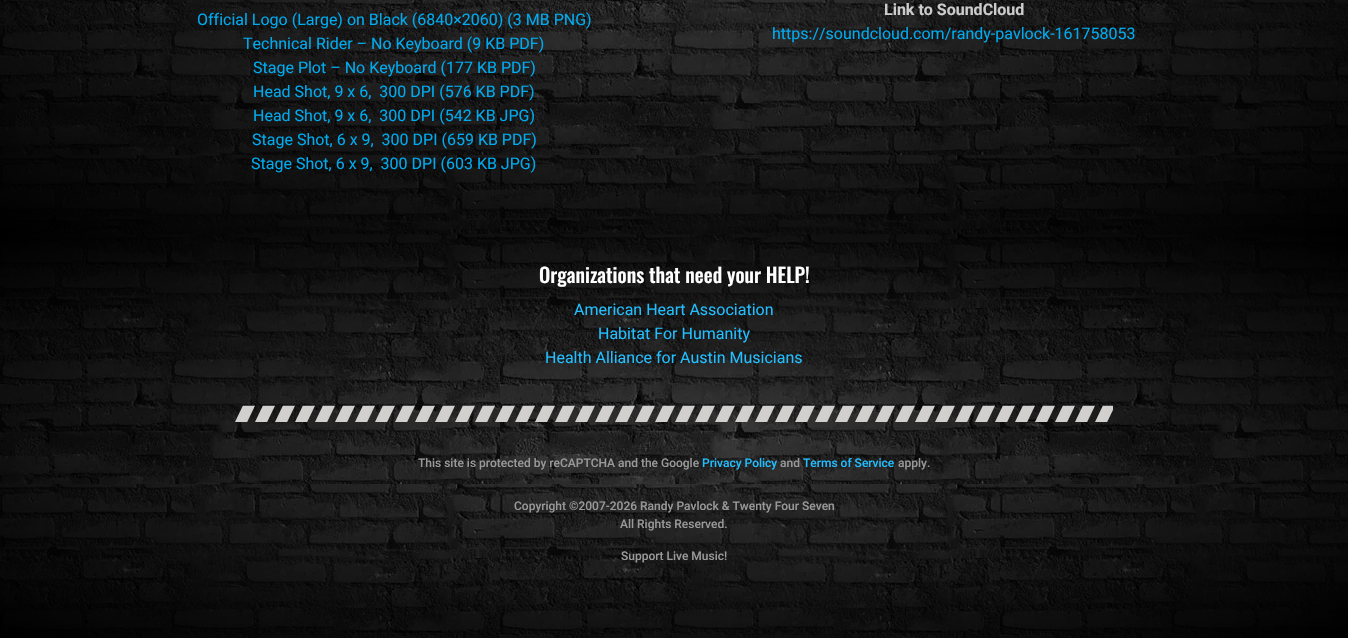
#include "include/core/SkBlurTypes.h"
#include "include/core/SkCanvas.h"
#include "include/core/SkData.h"
#include "include/core/SkFont.h"
#include "include/core/SkFontMgr.h"
#include "include/core/SkImage.h"
#include "include/core/SkMaskFilter.h"
#include "include/core/SkPaint.h"
#include "include/core/SkPathBuilder.h"
#include "include/core/SkTextBlob.h"
#include "include/effects/SkDashPathEffect.h"
#include "include/effects/SkGradientShader.h"
#include "include/utils/SkParsePath.h"

extern sk_sp<SkFontMgr> fontMgr;

void draw(SkCanvas* canvas) {
  SkPaint p;
  p.setAntiAlias(true);
  canvas->clear(SK_ColorWHITE);
  canvas->drawImageRect(SkImages::DeferredFromEncodedData(SkData::MakeFromFileName("images/1.png")), SkRect::MakeLTRB(0, 0, 1348, 234), SkSamplingOptions());
  canvas->drawImageRect(SkImages::DeferredFromEncodedData(SkData::MakeFromFileName("images/2.png")), SkRect::MakeLTRB(0, 234, 1348, 638), SkSamplingOptions());
  canvas->drawImageRect(SkImages::DeferredFromEncodedData(SkData::MakeFromFileName("images/3.png")), SkRect::MakeLTRB(235, 405, 1113, 422), SkSamplingOptions());
  SkFont font1(fontMgr->matchFamilyStyle("Roboto", SkFontStyle::Normal()), 16);
  font1.setSubpixel(true);
  p.setColor(SkColorSetRGB(0, 170, 238));
  canvas->drawString("Official Logo (Large) on Black (6840×2060) (3 MB PNG)", 197, 25, font1, p);
  canvas->drawString("Technical Rider – No Keyboard (9 KB PDF)", 243, 49, font1, p);
  canvas->drawString("Stage Plot – No Keyboard (177 KB PDF)", 253, 73, font1, p);
  canvas->drawString("Head Shot, 9 x 6,  300 DPI (576 KB PDF)", 253, 97, font1, p);
  canvas->drawString("Head Shot, 9 x 6,  300 DPI (542 KB JPG)", 253, 121, font1, p);
  canvas->drawString("Stage Shot, 6 x 9,  300 DPI (659 KB PDF)", 252, 145, font1, p);
  canvas->drawString("Stage Shot, 6 x 9,  300 DPI (603 KB JPG)", 251, 169, font1, p);
  SkFont font2(fontMgr->matchFamilyStyle("Roboto", SkFontStyle::Bold()), 16);
  font2.setSubpixel(true);
  p.setColor(SkColorSetRGB(204, 204, 204));
  canvas->drawString("Link to SoundCloud", 884, 15, font2, p);
  p.setColor(SkColorSetRGB(0, 170, 238));
  canvas->drawString("https://soundcloud.com/randy-pavlock-161758053", 772, 39, font1, p);
  SkFont font3(fontMgr->matchFamilyStyle("Oswald", SkFontStyle(500, SkFontStyle::kNormal_Width, SkFontStyle::kUpright_Slant)), 20);
  font3.setSubpixel(true);
  p.setColor(SK_ColorWHITE);
  canvas->drawString("Organizations that need your HELP!", 539, 283, font3, p);
  p.setColor(SkColorSetRGB(35, 190, 255));
  canvas->drawString("American Heart Association", 574, 315, font1, p);
  canvas->drawString("Habitat For Humanity", 598, 339, font1, p);
  canvas->drawString("Health Alliance for Austin Musicians", 545, 363, font1, p);
  SkFont font4(fontMgr->matchFamilyStyle("Roboto", SkFontStyle(500, SkFontStyle::kNormal_Width, SkFontStyle::kUpright_Slant)), 12);
  font4.setSubpixel(true);
  p.setColor(SkColorSetRGB(153, 153, 153));
  canvas->drawString("This site is protected by reCAPTCHA and the Google", 418, 467, font4, p);
  p.setColor(SkColorSetRGB(35, 190, 255));
  canvas->drawString("Privacy Policy", 702, 467, font4, p);
  p.setColor(SkColorSetRGB(153, 153, 153));
  canvas->drawString("and", 780, 467, font4, p);
  p.setColor(SkColorSetRGB(35, 190, 255));
  canvas->drawString("Terms of Service", 803, 467, font4, p);
  p.setColor(SkColorSetRGB(153, 153, 153));
  canvas->drawString("apply.", 898, 467, font4, p);
  canvas->drawString("Copyright ©2007-2026 Randy Pavlock & Twenty Four Seven", 514, 510, font4, p);
  canvas->drawString("All Rights Reserved.", 620, 528, font4, p);
  canvas->drawString("Support Live Music!", 621, 560, font4, p);
}
